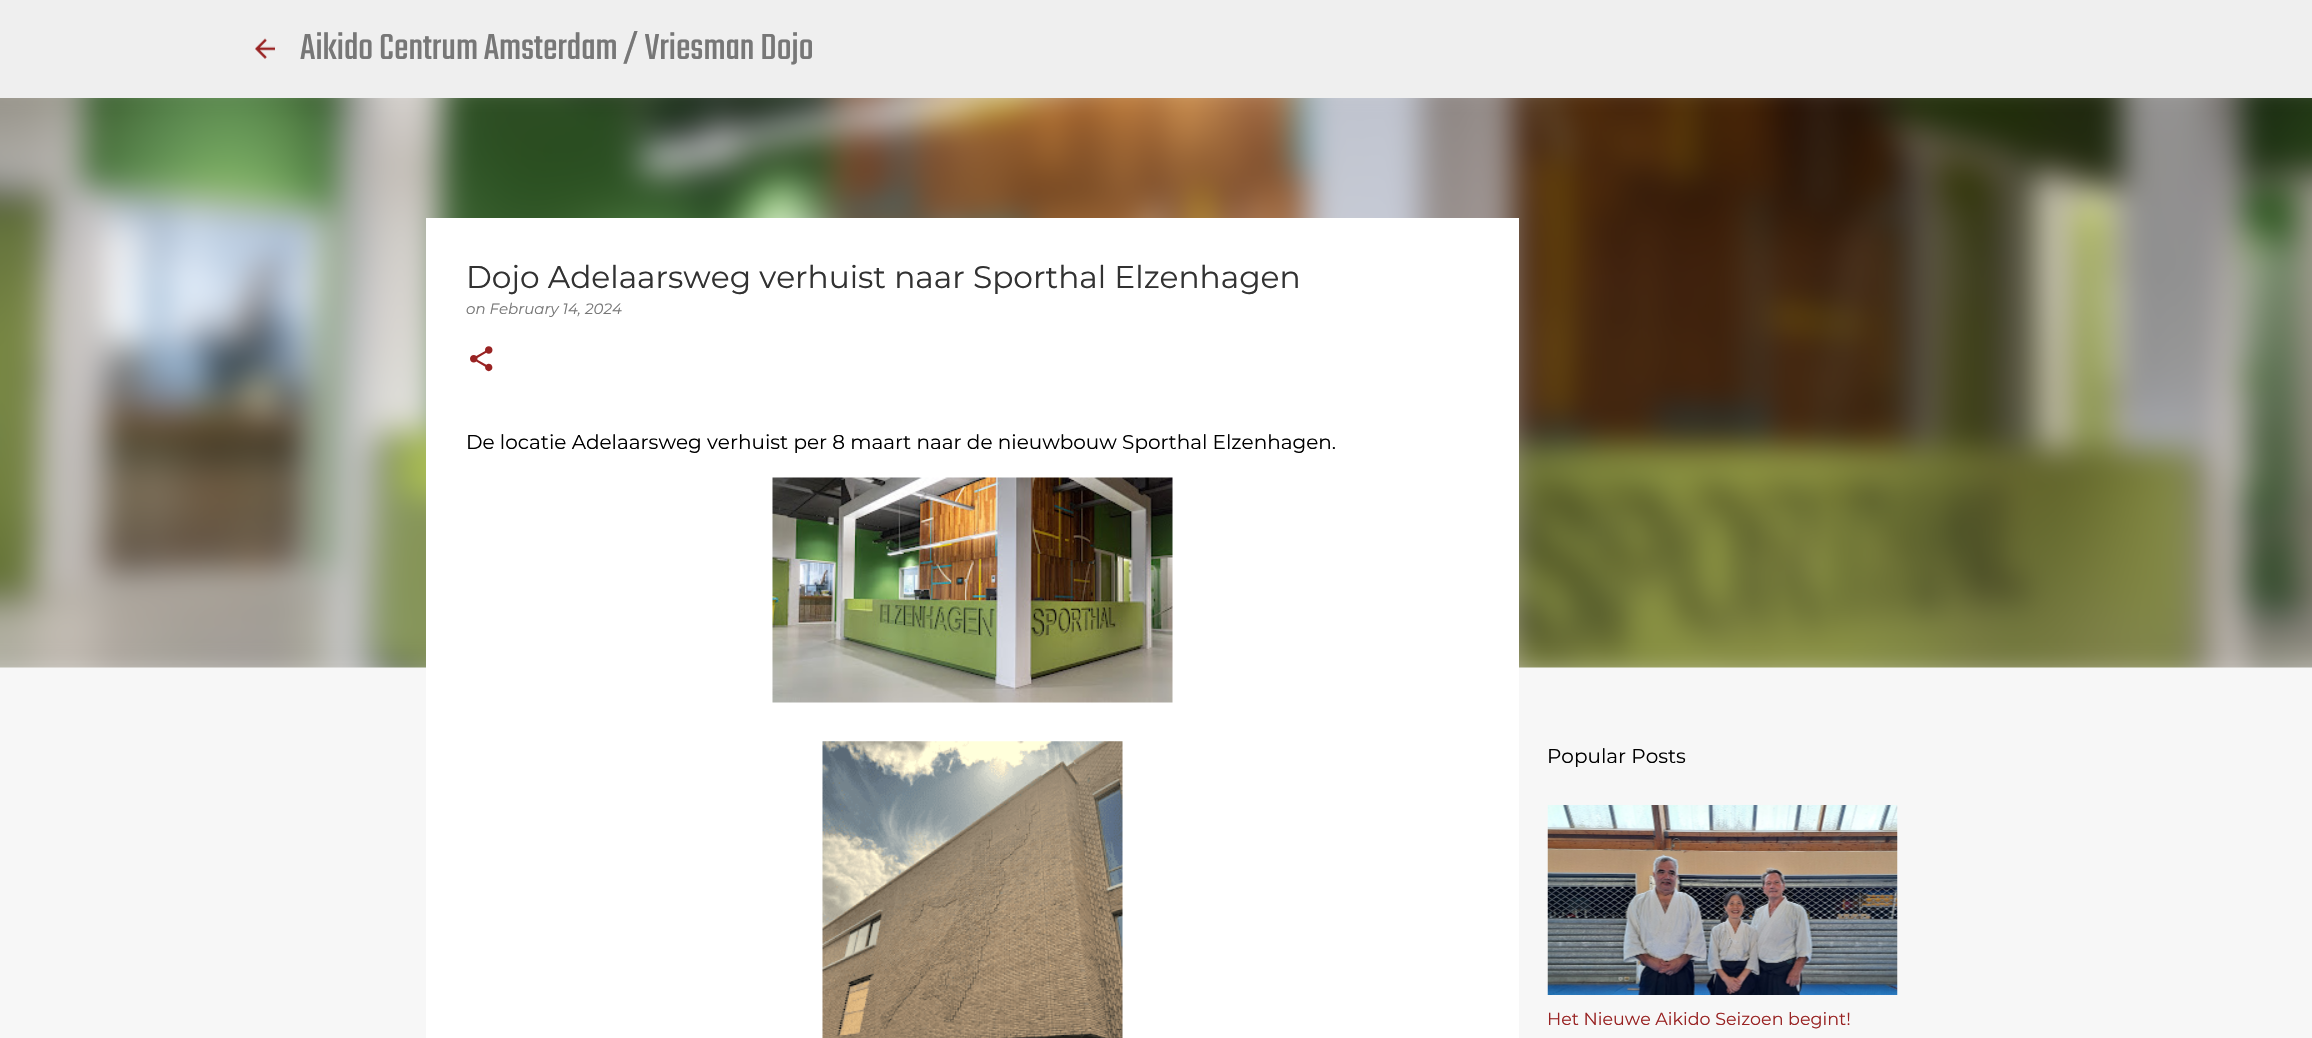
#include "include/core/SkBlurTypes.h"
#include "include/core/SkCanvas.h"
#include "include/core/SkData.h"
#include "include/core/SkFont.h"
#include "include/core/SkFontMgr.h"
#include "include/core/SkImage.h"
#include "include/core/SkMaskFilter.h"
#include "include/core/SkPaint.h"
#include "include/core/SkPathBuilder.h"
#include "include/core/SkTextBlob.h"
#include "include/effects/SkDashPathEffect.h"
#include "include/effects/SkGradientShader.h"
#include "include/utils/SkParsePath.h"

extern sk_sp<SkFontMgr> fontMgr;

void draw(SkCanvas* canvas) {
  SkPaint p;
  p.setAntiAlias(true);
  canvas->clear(SkColorSetRGB(247, 247, 247));
  p.setColor(SkColorSetRGB(239, 239, 239));
  canvas->drawRect(SkRect::MakeLTRB(0, 0, 2312, 98), p);
  canvas->drawImageRect(SkImages::DeferredFromEncodedData(SkData::MakeFromFileName("images/1.png")), SkRect::MakeLTRB(255, 38, 275, 59), SkSamplingOptions());
  canvas->drawImageRect(SkImages::DeferredFromEncodedData(SkData::MakeFromFileName("images/6.png")), SkRect::MakeLTRB(0, 98, 2312, 668), SkSamplingOptions());
  p.setColor(SK_ColorWHITE);
  canvas->drawRect(SkRect::MakeLTRB(426, 218, 1519, 1038), p);
  canvas->drawImageRect(SkImages::DeferredFromEncodedData(SkData::MakeFromFileName("images/2.png")), SkRect::MakeLTRB(470, 346, 493, 372), SkSamplingOptions());
  canvas->drawImageRect(SkImages::DeferredFromEncodedData(SkData::MakeFromFileName("images/3.png")), SkRect::MakeLTRB(772, 477, 1173, 703), SkSamplingOptions());
  canvas->drawImageRect(SkImages::DeferredFromEncodedData(SkData::MakeFromFileName("images/4.png")), SkRect::MakeLTRB(822, 741, 1123, 1038), SkSamplingOptions());
  canvas->drawImageRect(SkImages::DeferredFromEncodedData(SkData::MakeFromFileName("images/5.png")), SkRect::MakeLTRB(1547, 805, 1898, 995), SkSamplingOptions());
  SkFont font1(fontMgr->matchFamilyStyle("Teko", SkFontStyle::Normal()), 40);
  font1.setSubpixel(true);
  p.setColor(SkColorSetRGB(119, 119, 119));
  canvas->drawString("Aikido Centrum Amsterdam / Vriesman Dojo", 300, 59, font1, p);
  SkFont font2(fontMgr->matchFamilyStyle("Montserrat", SkFontStyle(100, SkFontStyle::kNormal_Width, SkFontStyle::kUpright_Slant)), 31.25f);
  font2.setSubpixel(true);
  p.setColor(SkColorSetRGB(50, 50, 50));
  canvas->drawString("Dojo Adelaarsweg verhuist naar Sporthal Elzenhagen", 466, 288, font2, p);
  SkFont font3(fontMgr->matchFamilyStyle("Montserrat", SkFontStyle(100, SkFontStyle::kNormal_Width, SkFontStyle::kItalic_Slant)), 15);
  font3.setSubpixel(true);
  p.setColor(SkColorSetRGB(119, 119, 119));
  canvas->drawString("on February 14, 2024", 466, 314, font3, p);
  SkFont font4(fontMgr->matchFamilyStyle("Montserrat", SkFontStyle(100, SkFontStyle::kNormal_Width, SkFontStyle::kUpright_Slant)), 20);
  font4.setSubpixel(true);
  p.setColor(SK_ColorBLACK);
  canvas->drawString("De locatie Adelaarsweg verhuist per 8 maart naar de nieuwbouw Sporthal Elzenhagen.", 466, 449, font4, p);
  canvas->drawString("Popular Posts", 1547, 763, font4, p);
  SkFont font5(fontMgr->matchFamilyStyle("Montserrat", SkFontStyle(100, SkFontStyle::kNormal_Width, SkFontStyle::kUpright_Slant)), 17.5f);
  font5.setSubpixel(true);
  p.setColor(SkColorSetRGB(153, 35, 35));
  canvas->drawString("Het Nieuwe Aikido Seizoen begint!", 1547, 1025, font5, p);
}
